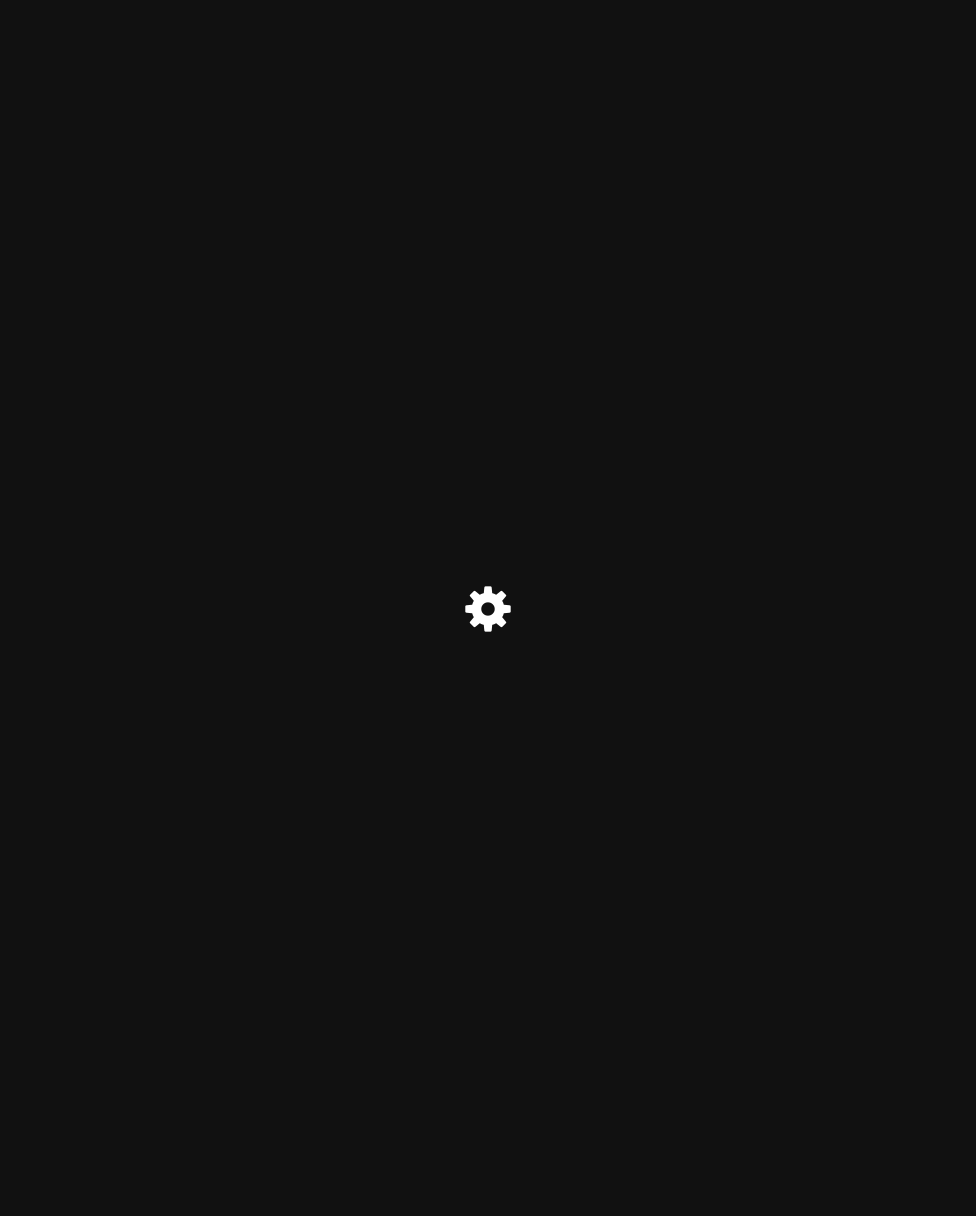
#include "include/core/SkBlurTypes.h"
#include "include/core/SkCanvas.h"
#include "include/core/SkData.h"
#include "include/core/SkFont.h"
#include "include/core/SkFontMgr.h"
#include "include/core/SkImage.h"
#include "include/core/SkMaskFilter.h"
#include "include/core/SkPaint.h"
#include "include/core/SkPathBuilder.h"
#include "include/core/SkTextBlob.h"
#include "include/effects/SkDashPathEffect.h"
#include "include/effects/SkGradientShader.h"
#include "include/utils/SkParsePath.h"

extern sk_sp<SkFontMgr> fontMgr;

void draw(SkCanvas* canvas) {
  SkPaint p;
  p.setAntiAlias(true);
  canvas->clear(SkColorSetRGB(17, 17, 17));
  canvas->drawImageRect(SkImages::DeferredFromEncodedData(SkData::MakeFromFileName("images/1.png")), SkRect::MakeLTRB(465, 586, 511, 632), SkSamplingOptions());
}
